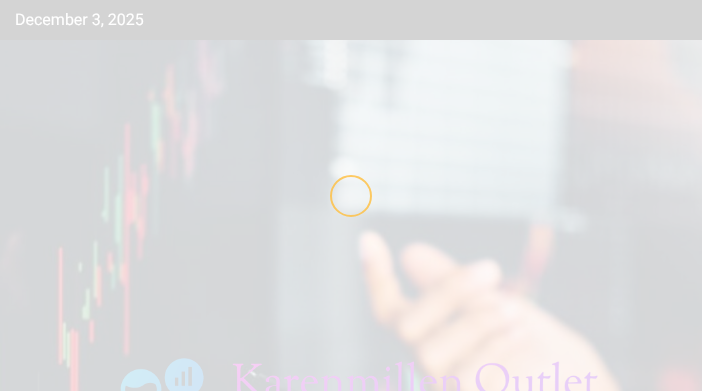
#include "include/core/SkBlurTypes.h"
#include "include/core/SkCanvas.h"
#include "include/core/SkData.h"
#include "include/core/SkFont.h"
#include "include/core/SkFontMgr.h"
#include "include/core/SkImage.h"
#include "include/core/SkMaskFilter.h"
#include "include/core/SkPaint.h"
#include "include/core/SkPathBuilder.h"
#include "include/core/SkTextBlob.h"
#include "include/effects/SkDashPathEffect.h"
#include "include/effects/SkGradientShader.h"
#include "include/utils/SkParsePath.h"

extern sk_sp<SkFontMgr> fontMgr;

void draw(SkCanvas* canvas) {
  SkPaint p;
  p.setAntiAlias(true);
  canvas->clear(SkColorSetRGB(212, 212, 212));
  canvas->drawImageRect(SkImages::DeferredFromEncodedData(SkData::MakeFromFileName("images/1.png")), SkRect::MakeLTRB(0, 40, 702, 391), SkSamplingOptions());
  canvas->drawImageRect(SkImages::DeferredFromEncodedData(SkData::MakeFromFileName("images/2.png")), SkRect::MakeLTRB(120, 358, 598, 391), SkSamplingOptions());
  p.setStyle(SkPaint::kStroke_Style);
  p.setStrokeWidth(2);
  p.setColor(SkColorSetARGB(207, 255, 191, 63));
  canvas->drawCircle(351, 196, 20, p);
  SkFont font1(fontMgr->matchFamilyStyle("Roboto", SkFontStyle::Normal()), 16);
  font1.setSubpixel(true);
  p.setStyle(SkPaint::kFill_Style);
  p.setColor(SK_ColorWHITE);
  canvas->drawString("December 3, 2025", 15, 25, font1, p);
}
